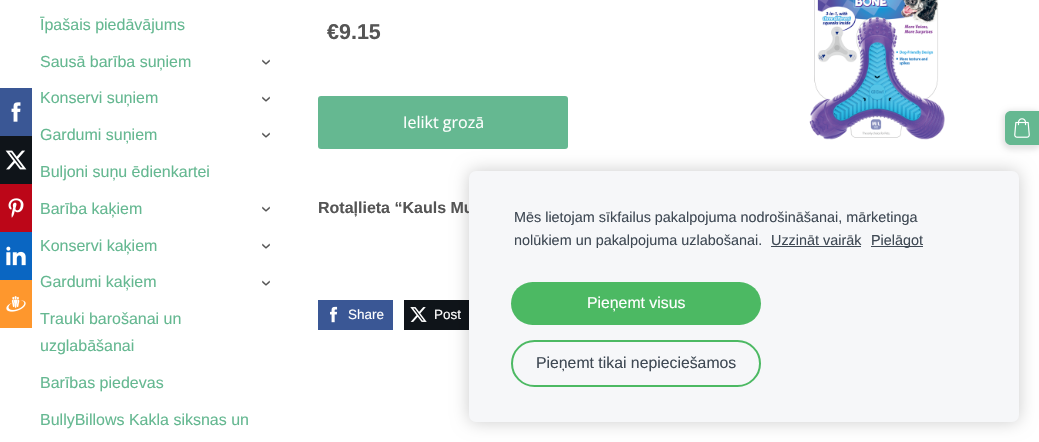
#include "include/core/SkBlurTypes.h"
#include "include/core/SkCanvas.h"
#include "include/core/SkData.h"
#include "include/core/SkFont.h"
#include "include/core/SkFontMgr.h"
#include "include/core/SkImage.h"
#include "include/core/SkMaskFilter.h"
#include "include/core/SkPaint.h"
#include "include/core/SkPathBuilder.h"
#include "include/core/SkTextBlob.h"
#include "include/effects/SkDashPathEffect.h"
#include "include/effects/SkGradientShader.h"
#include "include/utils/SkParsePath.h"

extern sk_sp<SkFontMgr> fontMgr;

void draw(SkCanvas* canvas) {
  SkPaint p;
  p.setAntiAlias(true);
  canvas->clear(SK_ColorWHITE);
  p.setColor(SkColorSetRGB(58, 87, 149));
  canvas->drawRect(SkRect::MakeLTRB(0, 88, 32, 136), p);
  canvas->drawImageRect(SkImages::DeferredFromEncodedData(SkData::MakeFromFileName("images/1.png")), SkRect::MakeLTRB(11, 102, 21, 122), SkSamplingOptions());
  p.setColor(SkColorSetRGB(15, 20, 25));
  canvas->drawRect(SkRect::MakeLTRB(0, 136, 32, 184), p);
  canvas->drawImageRect(SkImages::DeferredFromEncodedData(SkData::MakeFromFileName("images/2.png")), SkRect::MakeLTRB(5, 150, 27, 170), SkSamplingOptions());
  p.setColor(SkColorSetRGB(188, 6, 24));
  canvas->drawRect(SkRect::MakeLTRB(0, 184, 32, 232), p);
  canvas->drawImageRect(SkImages::DeferredFromEncodedData(SkData::MakeFromFileName("images/3.png")), SkRect::MakeLTRB(8, 198, 24, 218), SkSamplingOptions());
  p.setColor(SkColorSetRGB(10, 102, 194));
  canvas->drawRect(SkRect::MakeLTRB(0, 232, 32, 280), p);
  canvas->drawImageRect(SkImages::DeferredFromEncodedData(SkData::MakeFromFileName("images/4.png")), SkRect::MakeLTRB(6, 246, 26, 266), SkSamplingOptions());
  p.setColor(SkColorSetRGB(254, 151, 45));
  canvas->drawRect(SkRect::MakeLTRB(0, 280, 32, 328), p);
  canvas->drawImageRect(SkImages::DeferredFromEncodedData(SkData::MakeFromFileName("images/5.png")), SkRect::MakeLTRB(6, 296, 26, 312), SkSamplingOptions());
  p.setColor(SkColorSetRGB(101, 184, 145));
  canvas->drawRoundRect(SkRect::MakeLTRB(318, 96, 568, 149), 3, 3, p);
  p.setColor(SkColorSetRGB(58, 87, 149));
  canvas->drawRect(SkRect::MakeLTRB(318, 300, 393, 330), p);
  canvas->drawImageRect(SkImages::DeferredFromEncodedData(SkData::MakeFromFileName("images/6.png")), SkRect::MakeLTRB(330, 306, 338, 323), SkSamplingOptions());
  p.setColor(SkColorSetRGB(15, 20, 25));
  canvas->drawRect(SkRect::MakeLTRB(404, 300, 469, 330), p);
  canvas->drawImageRect(SkImages::DeferredFromEncodedData(SkData::MakeFromFileName("images/7.png")), SkRect::MakeLTRB(410, 307, 427, 322), SkSamplingOptions());
  canvas->drawImageRect(SkImages::DeferredFromEncodedData(SkData::MakeFromFileName("images/8.png")), SkRect::MakeLTRB(809, 0, 945, 140), SkSamplingOptions());
  p.setColor(SkColorSetARGB(26, 0, 0, 0));
  p.setMaskFilter(SkMaskFilter::MakeBlur(kNormal_SkBlurStyle, 2.5f));
  canvas->drawRoundRect(SkRect::MakeLTRB(1002, 110, 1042, 150), 9, 9, p);
  p.setMaskFilter(nullptr);
  p.setColor(SkColorSetRGB(101, 184, 145));
  canvas->drawPath(SkPathBuilder().moveTo(1011, 111).lineTo(1039, 111).lineTo(1039, 145).lineTo(1011, 145).cubicTo(1007.5f, 145, 1005, 142.5f, 1005, 139).lineTo(1005, 117).cubicTo(1005, 113.5f, 1007.5f, 111, 1011, 111).close().detach(), p);
  canvas->drawImageRect(SkImages::DeferredFromEncodedData(SkData::MakeFromFileName("images/9.png")), SkRect::MakeLTRB(1014, 118, 1030, 138), SkSamplingOptions());
  p.setColor(SkColorSetARGB(51, 0, 0, 0));
  p.setMaskFilter(SkMaskFilter::MakeBlur(kNormal_SkBlurStyle, 8.5f));
  canvas->drawRoundRect(SkRect::MakeLTRB(469, 171, 1019, 422), 7, 7, p);
  p.setMaskFilter(nullptr);
  SkFont font1(fontMgr->matchFamilyStyle("Liberation Sans", SkFontStyle::Normal()), 16);
  font1.setSubpixel(true);
  p.setColor(SkColorSetRGB(101, 184, 145));
  canvas->drawString("Īpašais piedāvājums", 40, 30, font1, p);
  canvas->drawString("Sausā barība suņiem", 40, 67, font1, p);
  SkFont font2(fontMgr->matchFamilyStyle("Liberation Sans", SkFontStyle::Normal()), 19);
  font2.setSubpixel(true);
  p.setColor(SkColorSetRGB(85, 85, 85));
  canvas->save();
  canvas->rotate(90, 261, 59);
  canvas->drawString("›", 261, 59, font2, p);
  canvas->restore();
  p.setColor(SkColorSetRGB(101, 184, 145));
  canvas->drawString("Konservi suņiem", 40, 103, font1, p);
  p.setColor(SkColorSetRGB(85, 85, 85));
  canvas->save();
  canvas->rotate(90, 261, 96);
  canvas->drawString("›", 261, 96, font2, p);
  canvas->restore();
  p.setColor(SkColorSetRGB(101, 184, 145));
  canvas->drawString("Gardumi suņiem", 40, 140, font1, p);
  p.setColor(SkColorSetRGB(85, 85, 85));
  canvas->save();
  canvas->rotate(90, 261, 132);
  canvas->drawString("›", 261, 132, font2, p);
  canvas->restore();
  p.setColor(SkColorSetRGB(101, 184, 145));
  canvas->drawString("Buljoni suņu ēdienkartei", 40, 177, font1, p);
  canvas->drawString("Barība kaķiem", 40, 214, font1, p);
  p.setColor(SkColorSetRGB(85, 85, 85));
  canvas->save();
  canvas->rotate(90, 261, 206);
  canvas->drawString("›", 261, 206, font2, p);
  canvas->restore();
  p.setColor(SkColorSetRGB(101, 184, 145));
  canvas->drawString("Konservi kaķiem", 40, 251, font1, p);
  p.setColor(SkColorSetRGB(85, 85, 85));
  canvas->save();
  canvas->rotate(90, 261, 243);
  canvas->drawString("›", 261, 243, font2, p);
  canvas->restore();
  p.setColor(SkColorSetRGB(101, 184, 145));
  canvas->drawString("Gardumi kaķiem", 40, 287, font1, p);
  p.setColor(SkColorSetRGB(85, 85, 85));
  canvas->save();
  canvas->rotate(90, 261, 280);
  canvas->drawString("›", 261, 280, font2, p);
  canvas->restore();
  p.setColor(SkColorSetRGB(101, 184, 145));
  canvas->drawString("Trauki barošanai un", 40, 324, font1, p);
  canvas->drawString("uzglabāšanai", 40, 351, font1, p);
  canvas->drawString("Barības piedevas", 40, 388, font1, p);
  canvas->drawString("BullyBillows Kakla siksnas un", 40, 425, font1, p);
  SkFont font3(fontMgr->matchFamilyStyle("Liberation Sans", SkFontStyle::Bold()), 21.5f);
  font3.setSubpixel(true);
  p.setColor(SkColorSetRGB(85, 85, 85));
  canvas->drawString("€9.15", 327, 39, font3, p);
  SkFont font4(fontMgr->matchFamilyStyle("Open Sans", SkFontStyle::Normal()), 16);
  font4.setSubpixel(true);
  p.setColor(SK_ColorWHITE);
  canvas->drawString("Ielikt grozā", 403, 128, font4, p);
  SkFont font5(fontMgr->matchFamilyStyle("Liberation Sans", SkFontStyle::Bold()), 16);
  font5.setSubpixel(true);
  p.setColor(SkColorSetRGB(85, 85, 85));
  canvas->drawString("Rotaļlieta “Kauls Mu", 318, 213, font5, p);
  SkFont font6(fontMgr->matchFamilyStyle("Liberation Sans", SkFontStyle::Normal()), 13.5f);
  font6.setSubpixel(true);
  p.setColor(SK_ColorWHITE);
  canvas->drawString("Share", 348, 319, font6, p);
  canvas->drawString("Post", 434, 319, font6, p);
  p.setColor(SkColorSetRGB(246, 247, 249));
  canvas->drawRoundRect(SkRect::MakeLTRB(469, 171, 1019, 422), 7, 7, p);
  SkFont font7(fontMgr->matchFamilyStyle("Liberation Sans", SkFontStyle::Normal()), 14.4f);
  font7.setSubpixel(true);
  p.setColor(SkColorSetRGB(63, 73, 84));
  canvas->drawString("Mēs lietojam sīkfailus pakalpojuma nodrošināšanai, mārketinga", 514, 222, font7, p);
  canvas->drawString("nolūkiem un pakalpojuma uzlabošanai.", 514, 245, font7, p);
  canvas->drawString("Uzzināt vairāk", 771, 245, font7, p);
  canvas->drawRect(SkRect::MakeLTRB(771, 246, 861, 247), p);
  canvas->drawRect(SkRect::MakeLTRB(871, 246, 923, 247), p);
  canvas->drawString("Pielāgot", 871, 245, font7, p);
  p.setColor(SkColorSetRGB(76, 185, 99));
  canvas->drawRoundRect(SkRect::MakeLTRB(511, 282, 761, 325), 21.5f, 21.5f, p);
  SkFont font8(fontMgr->matchFamilyStyle("Liberation Sans", SkFontStyle::Normal()), 15.8f);
  font8.setSubpixel(true);
  p.setColor(SK_ColorWHITE);
  canvas->drawString("Pieņemt visus", 587, 308, font8, p);
  p.setStyle(SkPaint::kStroke_Style);
  p.setStrokeWidth(2);
  p.setColor(SkColorSetRGB(76, 185, 99));
  canvas->drawRoundRect(SkRect::MakeLTRB(512, 341, 760, 386), 22.5f, 22.5f, p);
  p.setStyle(SkPaint::kFill_Style);
  p.setColor(SkColorSetRGB(63, 73, 84));
  canvas->drawString("Pieņemt tikai nepieciešamos", 536, 368, font8, p);
}
